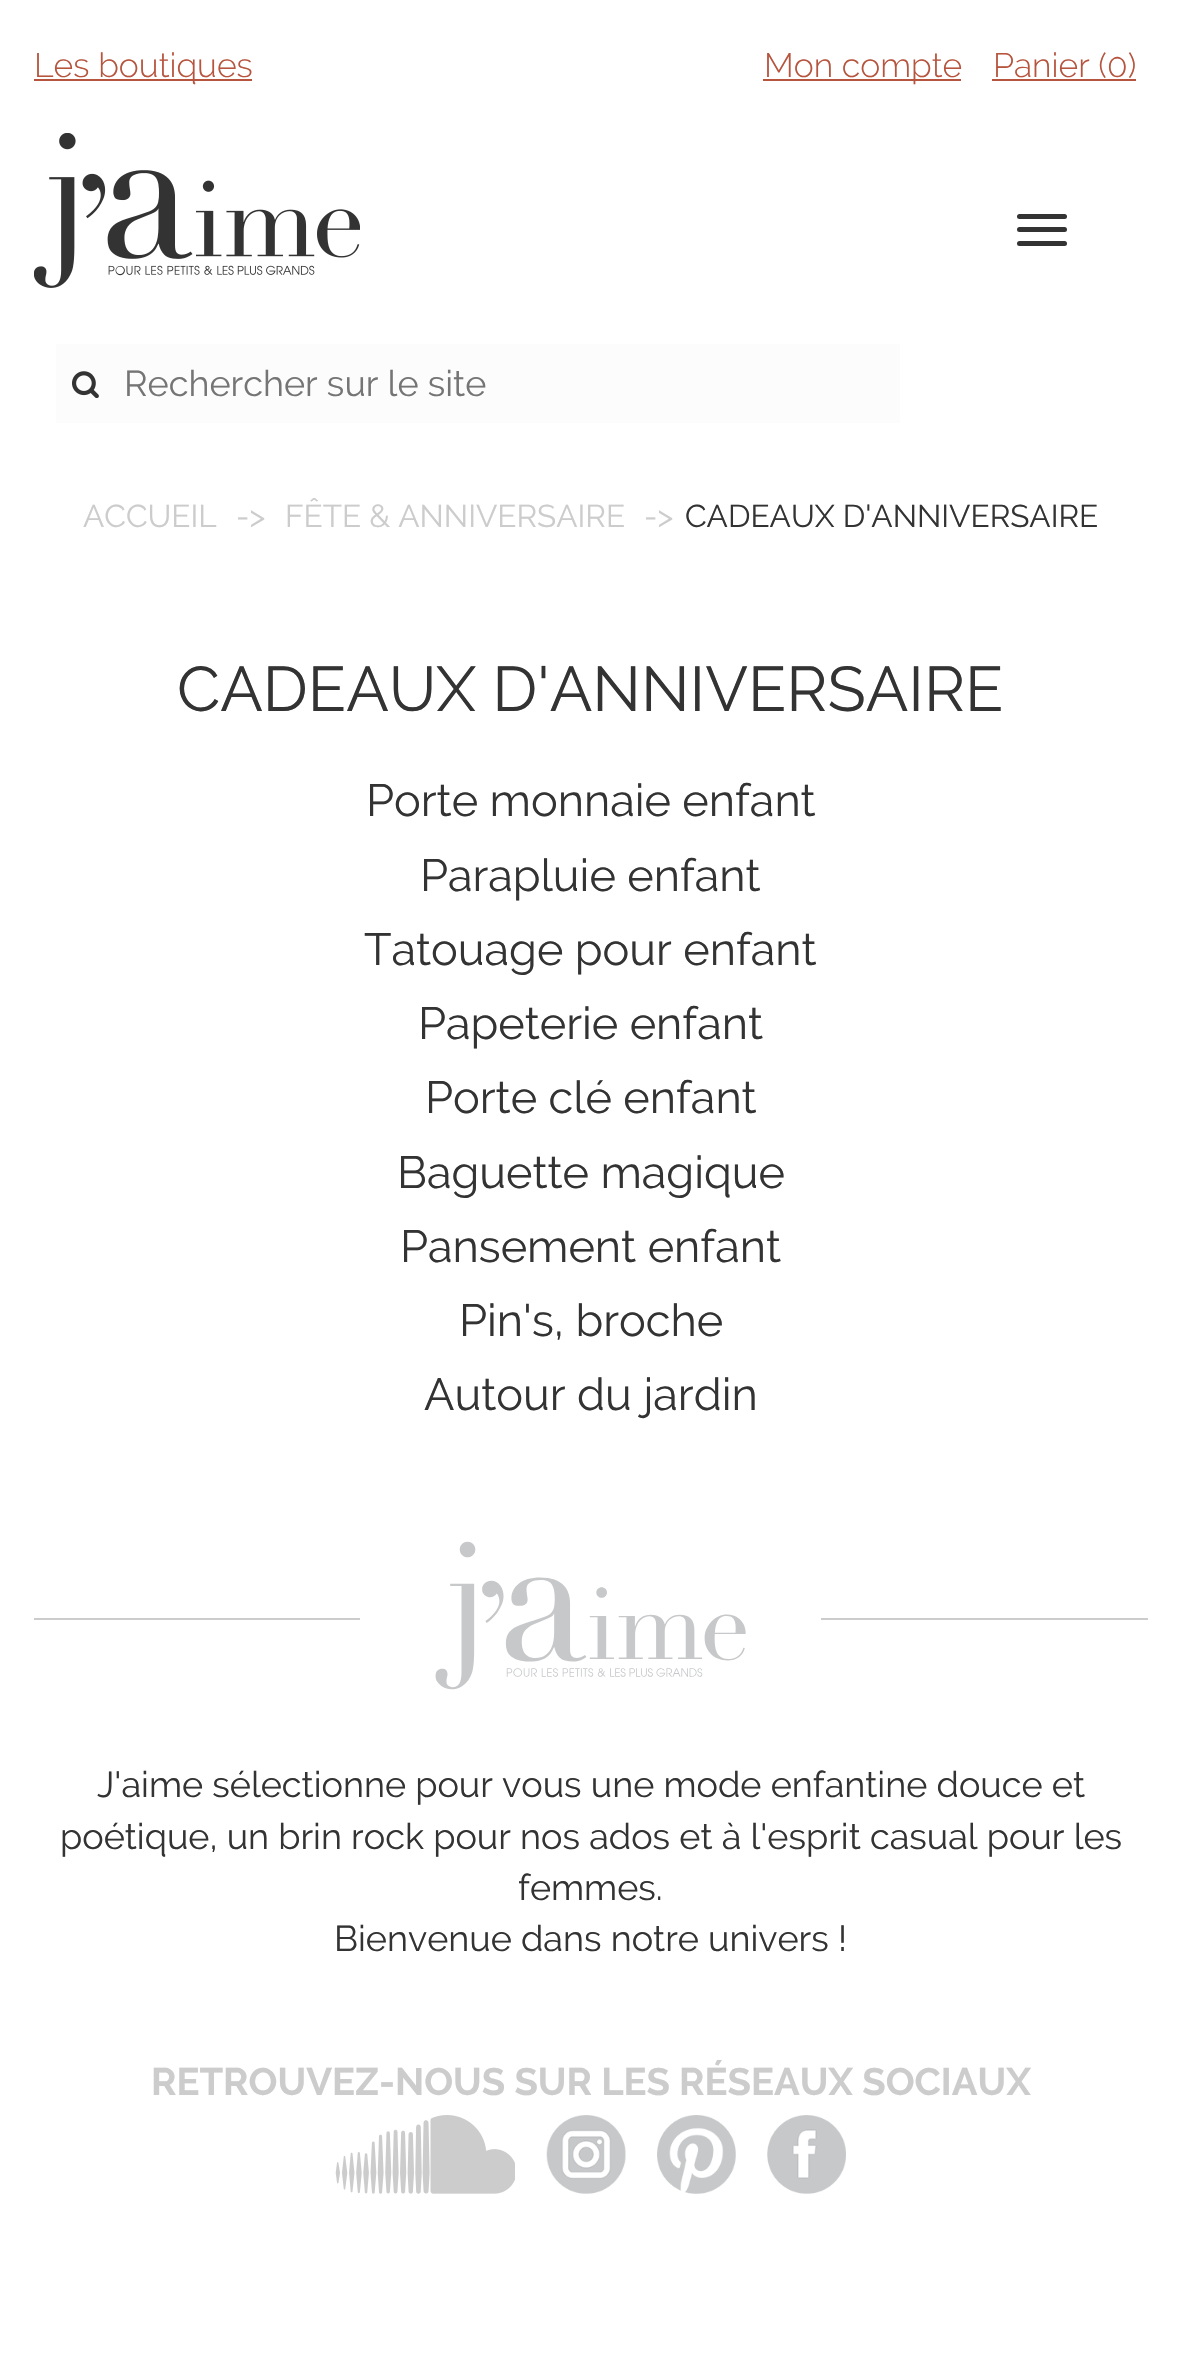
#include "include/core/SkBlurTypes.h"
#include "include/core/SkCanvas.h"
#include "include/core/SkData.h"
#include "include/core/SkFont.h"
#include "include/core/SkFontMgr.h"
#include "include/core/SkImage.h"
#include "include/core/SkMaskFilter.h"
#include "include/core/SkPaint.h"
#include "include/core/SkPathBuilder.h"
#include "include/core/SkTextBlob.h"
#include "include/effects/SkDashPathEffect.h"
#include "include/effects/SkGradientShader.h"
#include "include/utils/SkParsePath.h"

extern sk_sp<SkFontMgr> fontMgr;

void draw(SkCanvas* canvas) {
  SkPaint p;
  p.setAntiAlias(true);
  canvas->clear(SK_ColorWHITE);
  p.setColor(SkColorSetRGB(182, 84, 62));
  canvas->drawRect(SkRect::MakeLTRB(34, 79, 252, 81), p);
  canvas->drawRect(SkRect::MakeLTRB(763, 79, 961, 81), p);
  canvas->drawRect(SkRect::MakeLTRB(992, 79, 1136, 81), p);
  canvas->drawImageRect(SkImages::DeferredFromEncodedData(SkData::MakeFromFileName("images/1.png")), SkRect::MakeLTRB(34, 133, 360, 288), SkSamplingOptions());
  p.setColor(SkColorSetRGB(51, 51, 51));
  canvas->drawRoundRect(SkRect::MakeLTRB(1017, 214, 1067, 219), 2.5f, 2.5f, p);
  canvas->drawRoundRect(SkRect::MakeLTRB(1017, 227, 1067, 232), 2.5f, 2.5f, p);
  canvas->drawRoundRect(SkRect::MakeLTRB(1017, 241, 1067, 246), 2.5f, 2.5f, p);
  p.setColor(SkColorSetRGB(252, 252, 252));
  canvas->drawRect(SkRect::MakeLTRB(56, 344, 900, 423), p);
  canvas->drawImageRect(SkImages::DeferredFromEncodedData(SkData::MakeFromFileName("images/2.png")), SkRect::MakeLTRB(72, 371, 99, 398), SkSamplingOptions());
  p.setColor(SkColorSetRGB(204, 204, 204));
  canvas->drawRect(SkRect::MakeLTRB(34, 1618, 360, 1620), p);
  canvas->drawImageRect(SkImages::DeferredFromEncodedData(SkData::MakeFromFileName("images/3.png")), SkRect::MakeLTRB(435, 1541, 746, 1690), SkSamplingOptions());
  canvas->drawRect(SkRect::MakeLTRB(821, 1618, 1148, 1620), p);
  canvas->drawImageRect(SkImages::DeferredFromEncodedData(SkData::MakeFromFileName("images/4.png")), SkRect::MakeLTRB(335, 2115, 515, 2194), SkSamplingOptions());
  canvas->drawImageRect(SkImages::DeferredFromEncodedData(SkData::MakeFromFileName("images/5.png")), SkRect::MakeLTRB(546, 2115, 626, 2194), SkSamplingOptions());
  canvas->drawImageRect(SkImages::DeferredFromEncodedData(SkData::MakeFromFileName("images/6.png")), SkRect::MakeLTRB(657, 2115, 736, 2194), SkSamplingOptions());
  canvas->drawImageRect(SkImages::DeferredFromEncodedData(SkData::MakeFromFileName("images/7.png")), SkRect::MakeLTRB(767, 2115, 846, 2194), SkSamplingOptions());
  SkFont font1(fontMgr->matchFamilyStyle("Raleway", SkFontStyle(300, SkFontStyle::kNormal_Width, SkFontStyle::kUpright_Slant)), 33.75f);
  font1.setSubpixel(true);
  p.setColor(SkColorSetRGB(182, 84, 62));
  canvas->drawString("Les boutiques", 34, 77, font1, p);
  canvas->drawString("Mon compte", 764, 77, font1, p);
  canvas->drawString("Panier (0)", 993, 77, font1, p);
  SkFont font2(fontMgr->matchFamilyStyle("Raleway", SkFontStyle::Normal()), 36);
  font2.setSubpixel(true);
  p.setColor(SkColorSetRGB(117, 117, 117));
  canvas->drawString("Rechercher sur le site", 124, 396, font2, p);
  SkFont font3(fontMgr->matchFamilyStyle("Raleway", SkFontStyle::Normal()), 31.5f);
  font3.setSubpixel(true);
  p.setColor(SkColorSetRGB(204, 204, 204));
  canvas->drawString("ACCUEIL", 83, 527, font3, p);
  canvas->drawString("->", 236, 527, font3, p);
  canvas->drawString("FÊTE & ANNIVERSAIRE", 285, 527, font3, p);
  canvas->drawString("->", 644, 527, font3, p);
  p.setColor(SkColorSetRGB(51, 51, 51));
  canvas->drawString("CADEAUX D'ANNIVERSAIRE", 685, 527, font3, p);
  SkFont font4(fontMgr->matchFamilyStyle("Raleway", SkFontStyle::Normal()), 63);
  font4.setSubpixel(true);
  canvas->drawString("CADEAUX D'ANNIVERSAIRE", 177, 711, font4, p);
  SkFont font5(fontMgr->matchFamilyStyle("Raleway", SkFontStyle::Normal()), 45);
  font5.setSubpixel(true);
  canvas->drawString("Porte monnaie enfant", 366, 816, font5, p);
  canvas->drawString("Parapluie enfant", 420, 891, font5, p);
  canvas->drawString("Tatouage pour enfant", 364, 965, font5, p);
  canvas->drawString("Papeterie enfant", 418, 1039, font5, p);
  canvas->drawString("Porte clé enfant", 425, 1113, font5, p);
  canvas->drawString("Baguette magique", 397, 1188, font5, p);
  canvas->drawString("Pansement enfant", 400, 1262, font5, p);
  canvas->drawString("Pin's, broche", 459, 1336, font5, p);
  canvas->drawString("Autour du jardin", 424, 1410, font5, p);
  canvas->drawString("J'aime sélectionne pour vous une mode enfantine douce et", 97, 1797, font2, p);
  canvas->drawString("poétique, un brin rock pour nos ados et à l'esprit casual pour les", 60, 1849, font2, p);
  canvas->drawString("femmes.", 518, 1900, font2, p);
  canvas->drawString("Bienvenue dans notre univers !", 334, 1951, font2, p);
  SkFont font6(fontMgr->matchFamilyStyle("Raleway", SkFontStyle::Bold()), 38.25f);
  font6.setSubpixel(true);
  p.setColor(SkColorSetRGB(204, 204, 204));
  canvas->drawString("RETROUVEZ-NOUS SUR LES RÉSEAUX SOCIAUX", 151, 2095, font6, p);
}
